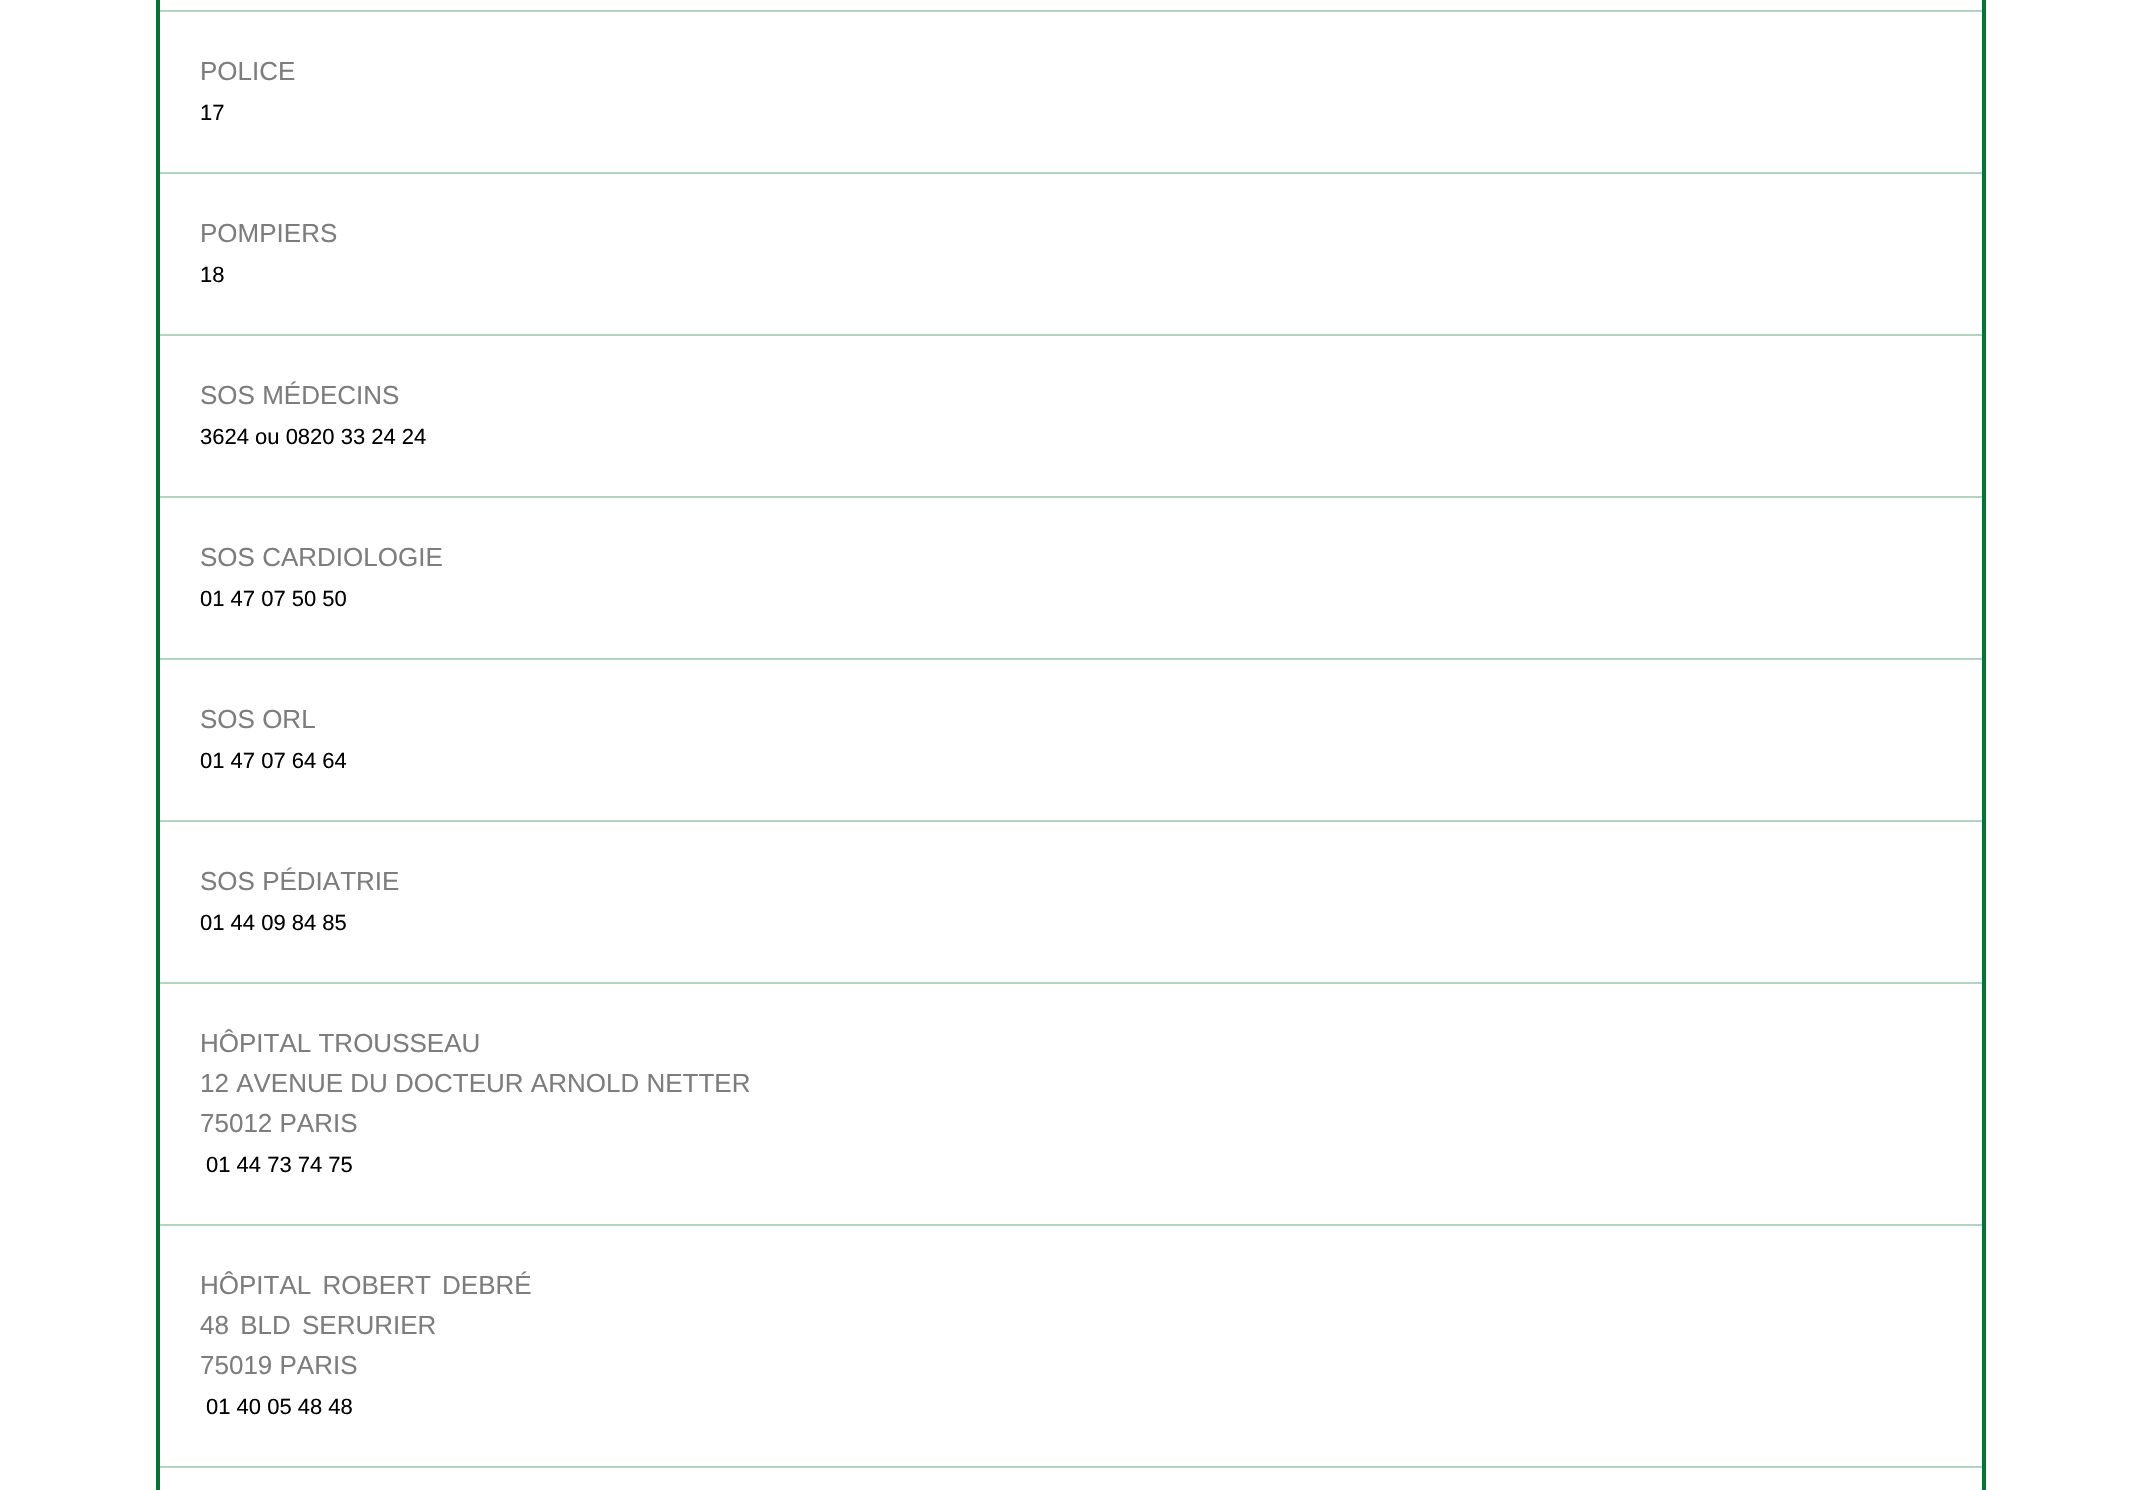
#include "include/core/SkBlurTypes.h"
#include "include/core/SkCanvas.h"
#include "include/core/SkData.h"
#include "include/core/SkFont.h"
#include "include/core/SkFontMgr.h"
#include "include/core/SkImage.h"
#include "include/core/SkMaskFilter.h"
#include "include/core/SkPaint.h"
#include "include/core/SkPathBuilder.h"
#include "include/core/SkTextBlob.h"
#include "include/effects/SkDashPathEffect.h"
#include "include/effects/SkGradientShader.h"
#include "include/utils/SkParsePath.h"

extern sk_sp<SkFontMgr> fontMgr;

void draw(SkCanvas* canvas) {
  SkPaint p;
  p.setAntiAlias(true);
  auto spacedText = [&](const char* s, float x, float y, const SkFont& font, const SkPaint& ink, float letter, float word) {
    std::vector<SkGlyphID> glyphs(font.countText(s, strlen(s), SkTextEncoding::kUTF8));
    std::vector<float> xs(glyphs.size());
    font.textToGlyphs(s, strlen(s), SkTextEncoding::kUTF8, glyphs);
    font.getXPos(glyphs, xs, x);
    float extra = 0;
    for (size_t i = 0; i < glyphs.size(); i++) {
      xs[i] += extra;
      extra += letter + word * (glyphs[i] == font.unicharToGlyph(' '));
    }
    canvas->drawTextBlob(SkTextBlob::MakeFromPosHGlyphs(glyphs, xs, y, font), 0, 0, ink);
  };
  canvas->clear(SK_ColorWHITE);
  p.setStyle(SkPaint::kStroke_Style);
  p.setStrokeWidth(4);
  p.setColor(SkColorSetRGB(0, 118, 52));
  canvas->drawRect(SkRect::MakeLTRB(158, -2, 1984, 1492), p);
  p.setStyle(SkPaint::kFill_Style);
  p.setColor(SkColorSetRGB(177, 212, 192));
  canvas->drawRect(SkRect::MakeLTRB(160, 10, 1982, 12), p);
  canvas->drawRect(SkRect::MakeLTRB(160, 172, 1982, 174), p);
  canvas->drawRect(SkRect::MakeLTRB(160, 334, 1982, 336), p);
  canvas->drawRect(SkRect::MakeLTRB(160, 496, 1982, 498), p);
  canvas->drawRect(SkRect::MakeLTRB(160, 658, 1982, 660), p);
  canvas->drawRect(SkRect::MakeLTRB(160, 820, 1982, 822), p);
  canvas->drawRect(SkRect::MakeLTRB(160, 982, 1982, 984), p);
  canvas->drawRect(SkRect::MakeLTRB(160, 1224, 1982, 1226), p);
  canvas->drawRect(SkRect::MakeLTRB(160, 1466, 1982, 1468), p);
  SkFont font1(fontMgr->matchFamilyStyle("Liberation Sans", SkFontStyle::Normal()), 26);
  font1.setSubpixel(true);
  p.setColor(SkColorSetRGB(124, 125, 124));
  canvas->drawString("POLICE", 200, 80, font1, p);
  SkFont font2(fontMgr->matchFamilyStyle("Liberation Sans", SkFontStyle::Normal()), 22);
  font2.setSubpixel(true);
  p.setColor(SK_ColorBLACK);
  canvas->drawString("17", 200, 120, font2, p);
  p.setColor(SkColorSetRGB(124, 125, 124));
  canvas->drawString("POMPIERS", 200, 242, font1, p);
  p.setColor(SK_ColorBLACK);
  canvas->drawString("18", 200, 282, font2, p);
  p.setColor(SkColorSetRGB(124, 125, 124));
  canvas->drawString("SOS MÉDECINS", 200, 404, font1, p);
  p.setColor(SK_ColorBLACK);
  canvas->drawString("3624 ou 0820 33 24 24", 200, 444, font2, p);
  p.setColor(SkColorSetRGB(124, 125, 124));
  canvas->drawString("SOS CARDIOLOGIE", 200, 566, font1, p);
  p.setColor(SK_ColorBLACK);
  canvas->drawString("01 47 07 50 50", 200, 606, font2, p);
  p.setColor(SkColorSetRGB(124, 125, 124));
  canvas->drawString("SOS ORL", 200, 728, font1, p);
  p.setColor(SK_ColorBLACK);
  canvas->drawString("01 47 07 64 64", 200, 768, font2, p);
  p.setColor(SkColorSetRGB(124, 125, 124));
  canvas->drawString("SOS PÉDIATRIE", 200, 890, font1, p);
  p.setColor(SK_ColorBLACK);
  canvas->drawString("01 44 09 84 85", 200, 930, font2, p);
  p.setColor(SkColorSetRGB(124, 125, 124));
  canvas->drawString("HÔPITAL TROUSSEAU", 200, 1052, font1, p);
  canvas->drawString("12 AVENUE DU DOCTEUR ARNOLD NETTER", 200, 1092, font1, p);
  canvas->drawString("75012 PARIS", 200, 1132, font1, p);
  p.setColor(SK_ColorBLACK);
  canvas->drawString("01 44 73 74 75", 206, 1172, font2, p);
  p.setColor(SkColorSetRGB(124, 125, 124));
  spacedText("HÔPITAL ROBERT DEBRÉ", 200, 1294, font1, p, 0, 4);
  spacedText("48 BLD SERURIER", 200, 1334, font1, p, 0, 4);
  canvas->drawString("75019 PARIS", 200, 1374, font1, p);
  p.setColor(SK_ColorBLACK);
  canvas->drawString("01 40 05 48 48", 206, 1414, font2, p);
}
